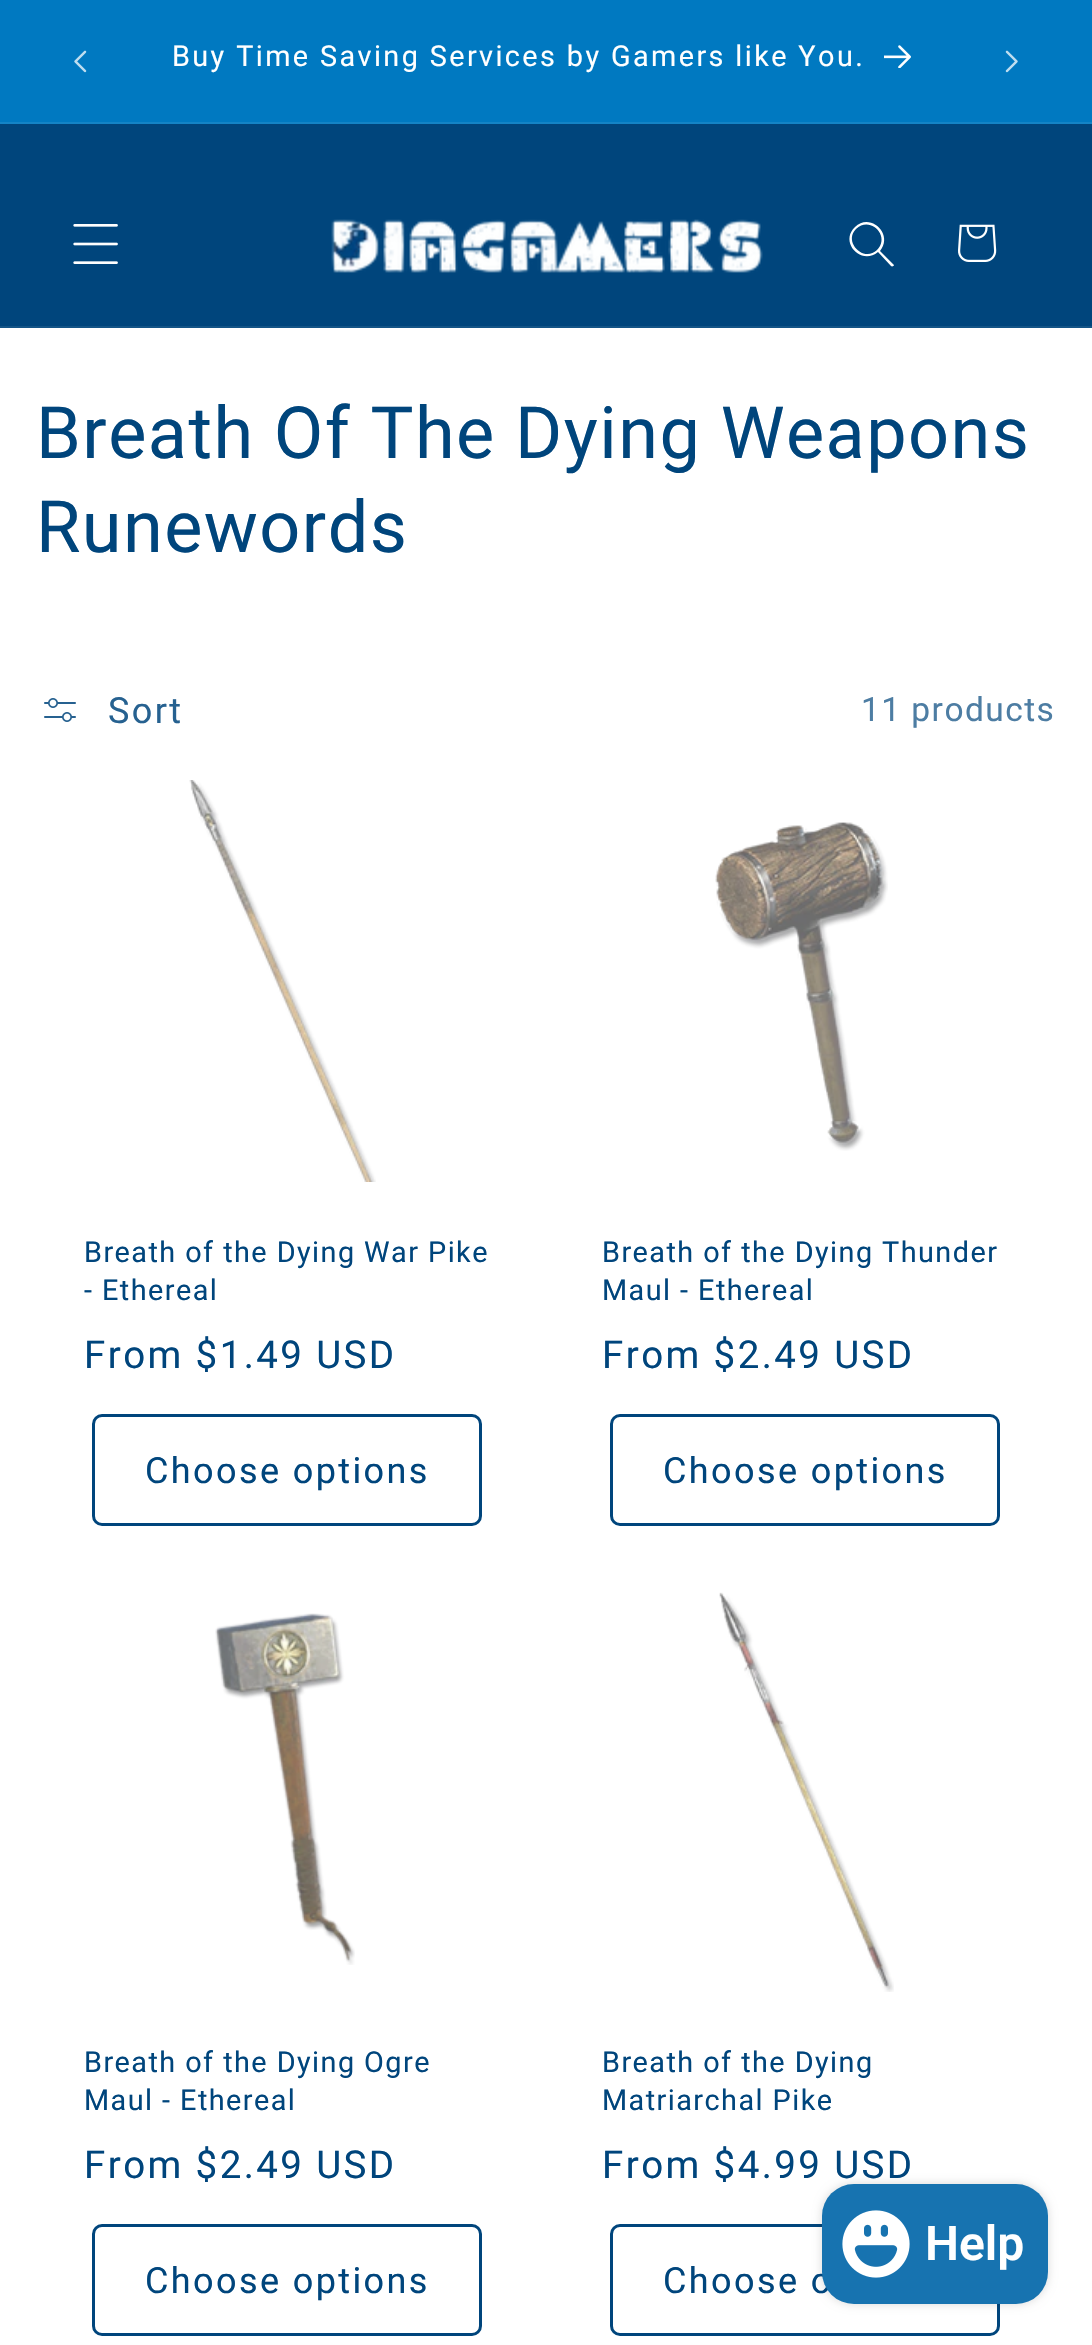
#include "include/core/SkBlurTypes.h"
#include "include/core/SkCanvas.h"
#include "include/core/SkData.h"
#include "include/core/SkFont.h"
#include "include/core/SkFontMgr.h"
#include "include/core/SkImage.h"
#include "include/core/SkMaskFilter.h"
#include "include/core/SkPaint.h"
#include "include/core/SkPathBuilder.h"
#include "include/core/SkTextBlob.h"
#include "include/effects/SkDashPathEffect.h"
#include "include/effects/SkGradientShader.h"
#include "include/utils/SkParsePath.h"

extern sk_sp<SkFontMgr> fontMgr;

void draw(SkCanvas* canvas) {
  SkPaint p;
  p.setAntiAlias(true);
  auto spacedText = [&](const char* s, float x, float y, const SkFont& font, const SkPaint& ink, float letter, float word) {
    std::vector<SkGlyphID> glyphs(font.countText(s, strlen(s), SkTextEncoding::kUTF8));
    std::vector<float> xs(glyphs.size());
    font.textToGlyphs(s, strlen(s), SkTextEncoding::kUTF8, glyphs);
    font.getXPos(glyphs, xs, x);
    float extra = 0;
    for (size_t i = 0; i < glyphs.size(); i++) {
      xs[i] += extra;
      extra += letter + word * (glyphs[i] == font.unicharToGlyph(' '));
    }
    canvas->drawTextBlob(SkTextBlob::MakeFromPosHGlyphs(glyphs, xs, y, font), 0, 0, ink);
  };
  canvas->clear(SK_ColorWHITE);
  p.setColor(SkColorSetRGB(0, 121, 193));
  canvas->drawRect(SkRect::MakeLTRB(0, 0, 1092, 122), p);
  p.setColor(SkColorSetRGB(20, 132, 198));
  canvas->drawRect(SkRect::MakeLTRB(0, 122, 1092, 124), p);
  canvas->drawImageRect(SkImages::DeferredFromEncodedData(SkData::MakeFromFileName("images/1.png")), SkRect::MakeLTRB(74, 50, 87, 73), SkSamplingOptions());
  canvas->drawImageRect(SkImages::DeferredFromEncodedData(SkData::MakeFromFileName("images/2.png")), SkRect::MakeLTRB(884, 45, 911, 68), SkSamplingOptions());
  canvas->drawImageRect(SkImages::DeferredFromEncodedData(SkData::MakeFromFileName("images/3.png")), SkRect::MakeLTRB(1005, 50, 1018, 73), SkSamplingOptions());
  p.setColor(SkColorSetRGB(0, 69, 124));
  canvas->drawRect(SkRect::MakeLTRB(0, 124, 1092, 326), p);
  p.setColor(SkColorSetRGB(20, 84, 134));
  canvas->drawRect(SkRect::MakeLTRB(0, 326, 1092, 328), p);
  canvas->drawImageRect(SkImages::DeferredFromEncodedData(SkData::MakeFromFileName("images/4.png")), SkRect::MakeLTRB(73, 224, 118, 264), SkSamplingOptions());
  canvas->drawImageRect(SkImages::DeferredFromEncodedData(SkData::MakeFromFileName("images/5.png")), SkRect::MakeLTRB(331, 219, 763, 273), SkSamplingOptions());
  p.setColor(SK_ColorWHITE);
  canvas->drawPath(SkPathBuilder(SkPathFillType::kEvenOdd).moveTo(877, 250).cubicTo(864, 263, 843, 242, 856, 229).cubicTo(870, 215, 891, 236, 877, 250).moveTo(878, 252).cubicTo(861, 266, 839, 242, 855, 227).cubicTo(870, 212, 894, 234, 880, 251).lineTo(894, 265).cubicTo(894, 266, 892, 267, 891, 266).close().detach(), p);
  canvas->drawImageRect(SkImages::DeferredFromEncodedData(SkData::MakeFromFileName("images/6.png")), SkRect::MakeLTRB(958, 224, 997, 262), SkSamplingOptions());
  canvas->drawImageRect(SkImages::DeferredFromEncodedData(SkData::MakeFromFileName("images/7.png")), SkRect::MakeLTRB(44, 698, 76, 722), SkSamplingOptions());
  canvas->drawImageRect(SkImages::DeferredFromEncodedData(SkData::MakeFromFileName("images/8.png")), SkRect::MakeLTRB(189, 780, 376, 1182), SkSamplingOptions());
  p.setStyle(SkPaint::kStroke_Style);
  p.setStrokeWidth(3);
  p.setColor(SkColorSetRGB(0, 69, 124));
  canvas->drawRoundRect(SkRect::MakeLTRB(93.5f, 1415.5f, 480.5f, 1524.5f), 8.5f, 8.5f, p);
  canvas->drawImageRect(SkImages::DeferredFromEncodedData(SkData::MakeFromFileName("images/9.png")), SkRect::MakeLTRB(715, 822, 888, 1151), SkSamplingOptions());
  canvas->drawRoundRect(SkRect::MakeLTRB(611.5f, 1415.5f, 998.5f, 1524.5f), 8.5f, 8.5f, p);
  canvas->drawImageRect(SkImages::DeferredFromEncodedData(SkData::MakeFromFileName("images/10.png")), SkRect::MakeLTRB(215, 1613, 355, 1965), SkSamplingOptions());
  canvas->drawRoundRect(SkRect::MakeLTRB(93.5f, 2225.5f, 480.5f, 2334.5f), 8.5f, 8.5f, p);
  canvas->drawImageRect(SkImages::DeferredFromEncodedData(SkData::MakeFromFileName("images/11.png")), SkRect::MakeLTRB(719, 1592, 894, 1992), SkSamplingOptions());
  canvas->drawRoundRect(SkRect::MakeLTRB(611.5f, 2225.5f, 998.5f, 2334.5f), 8.5f, 8.5f, p);
  p.setStyle(SkPaint::kFill_Style);
  p.setColor(SkColorSetARGB(38, 0, 0, 0));
  p.setMaskFilter(SkMaskFilter::MakeBlur(kNormal_SkBlurStyle, 5));
  canvas->drawRoundRect(SkRect::MakeLTRB(822, 2184, 1048, 2304), 32, 32, p);
  p.setMaskFilter(nullptr);
  SkFont font1(fontMgr->matchFamilyStyle("Roboto", SkFontStyle::Normal()), 28.8f);
  font1.setSubpixel(true);
  p.setColor(SK_ColorWHITE);
  spacedText("Buy Time Saving Services by Gamers like You.", 172, 66, font1, p, 2.4f, 0);
  SkFont font2(fontMgr->matchFamilyStyle("Roboto", SkFontStyle::Normal()), 72);
  font2.setSubpixel(true);
  p.setColor(SkColorSetRGB(0, 69, 124));
  spacedText("Breath Of The Dying Weapons", 36, 458, font2, p, 1.45f, 0);
  spacedText("Runewords", 36, 552, font2, p, 1.45f, 0);
  SkFont font3(fontMgr->matchFamilyStyle("Roboto", SkFontStyle::Normal()), 36);
  font3.setSubpixel(true);
  p.setColor(SkColorSetRGB(38, 97, 144));
  spacedText("Sort", 108, 723, font3, p, 2.4f, 0);
  SkFont font4(fontMgr->matchFamilyStyle("Roboto", SkFontStyle::Normal()), 33.5f);
  font4.setSubpixel(true);
  p.setColor(SkColorSetRGB(77, 125, 163));
  spacedText("11 products", 861, 721, font4, p, 1.45f, 0);
  p.setColor(SkColorSetRGB(0, 69, 124));
  spacedText("Breath of the Dying War Pike", 84, 1262, font1, p, 1.45f, 0);
  spacedText("- Ethereal", 84, 1300, font1, p, 1.45f, 0);
  SkFont font5(fontMgr->matchFamilyStyle("Roboto", SkFontStyle::Normal()), 38.5f);
  font5.setSubpixel(true);
  spacedText("From $1.49 USD", 84, 1368, font5, p, 2.4f, 0);
  spacedText("Choose options", 145, 1483, font3, p, 2.4f, 0);
  spacedText("Breath of the Dying Thunder", 602, 1262, font1, p, 1.45f, 0);
  spacedText("Maul - Ethereal", 602, 1300, font1, p, 1.45f, 0);
  spacedText("From $2.49 USD", 602, 1368, font5, p, 2.4f, 0);
  spacedText("Choose options", 663, 1483, font3, p, 2.4f, 0);
  spacedText("Breath of the Dying Ogre", 84, 2072, font1, p, 1.45f, 0);
  spacedText("Maul - Ethereal", 84, 2110, font1, p, 1.45f, 0);
  spacedText("From $2.49 USD", 84, 2178, font5, p, 2.4f, 0);
  spacedText("Choose options", 145, 2293, font3, p, 2.4f, 0);
  spacedText("Breath of the Dying", 602, 2072, font1, p, 1.45f, 0);
  spacedText("Matriarchal Pike", 602, 2110, font1, p, 1.45f, 0);
  spacedText("From $4.99 USD", 602, 2178, font5, p, 2.4f, 0);
  spacedText("Choose o", 663, 2293, font3, p, 2.4f, 0);
  p.setColor(SkColorSetRGB(23, 115, 176));
  canvas->drawRoundRect(SkRect::MakeLTRB(822, 2184, 1048, 2304), 32, 32, p);
  canvas->drawImageRect(SkImages::DeferredFromEncodedData(SkData::MakeFromFileName("images/12.png")), SkRect::MakeLTRB(842, 2210, 910, 2278), SkSamplingOptions());
  SkFont font6(fontMgr->matchFamilyStyle("Roboto", SkFontStyle(600, SkFontStyle::kNormal_Width, SkFontStyle::kUpright_Slant)), 48);
  font6.setSubpixel(true);
  p.setColor(SK_ColorWHITE);
  canvas->drawString("Help", 925, 2260, font6, p);
}
